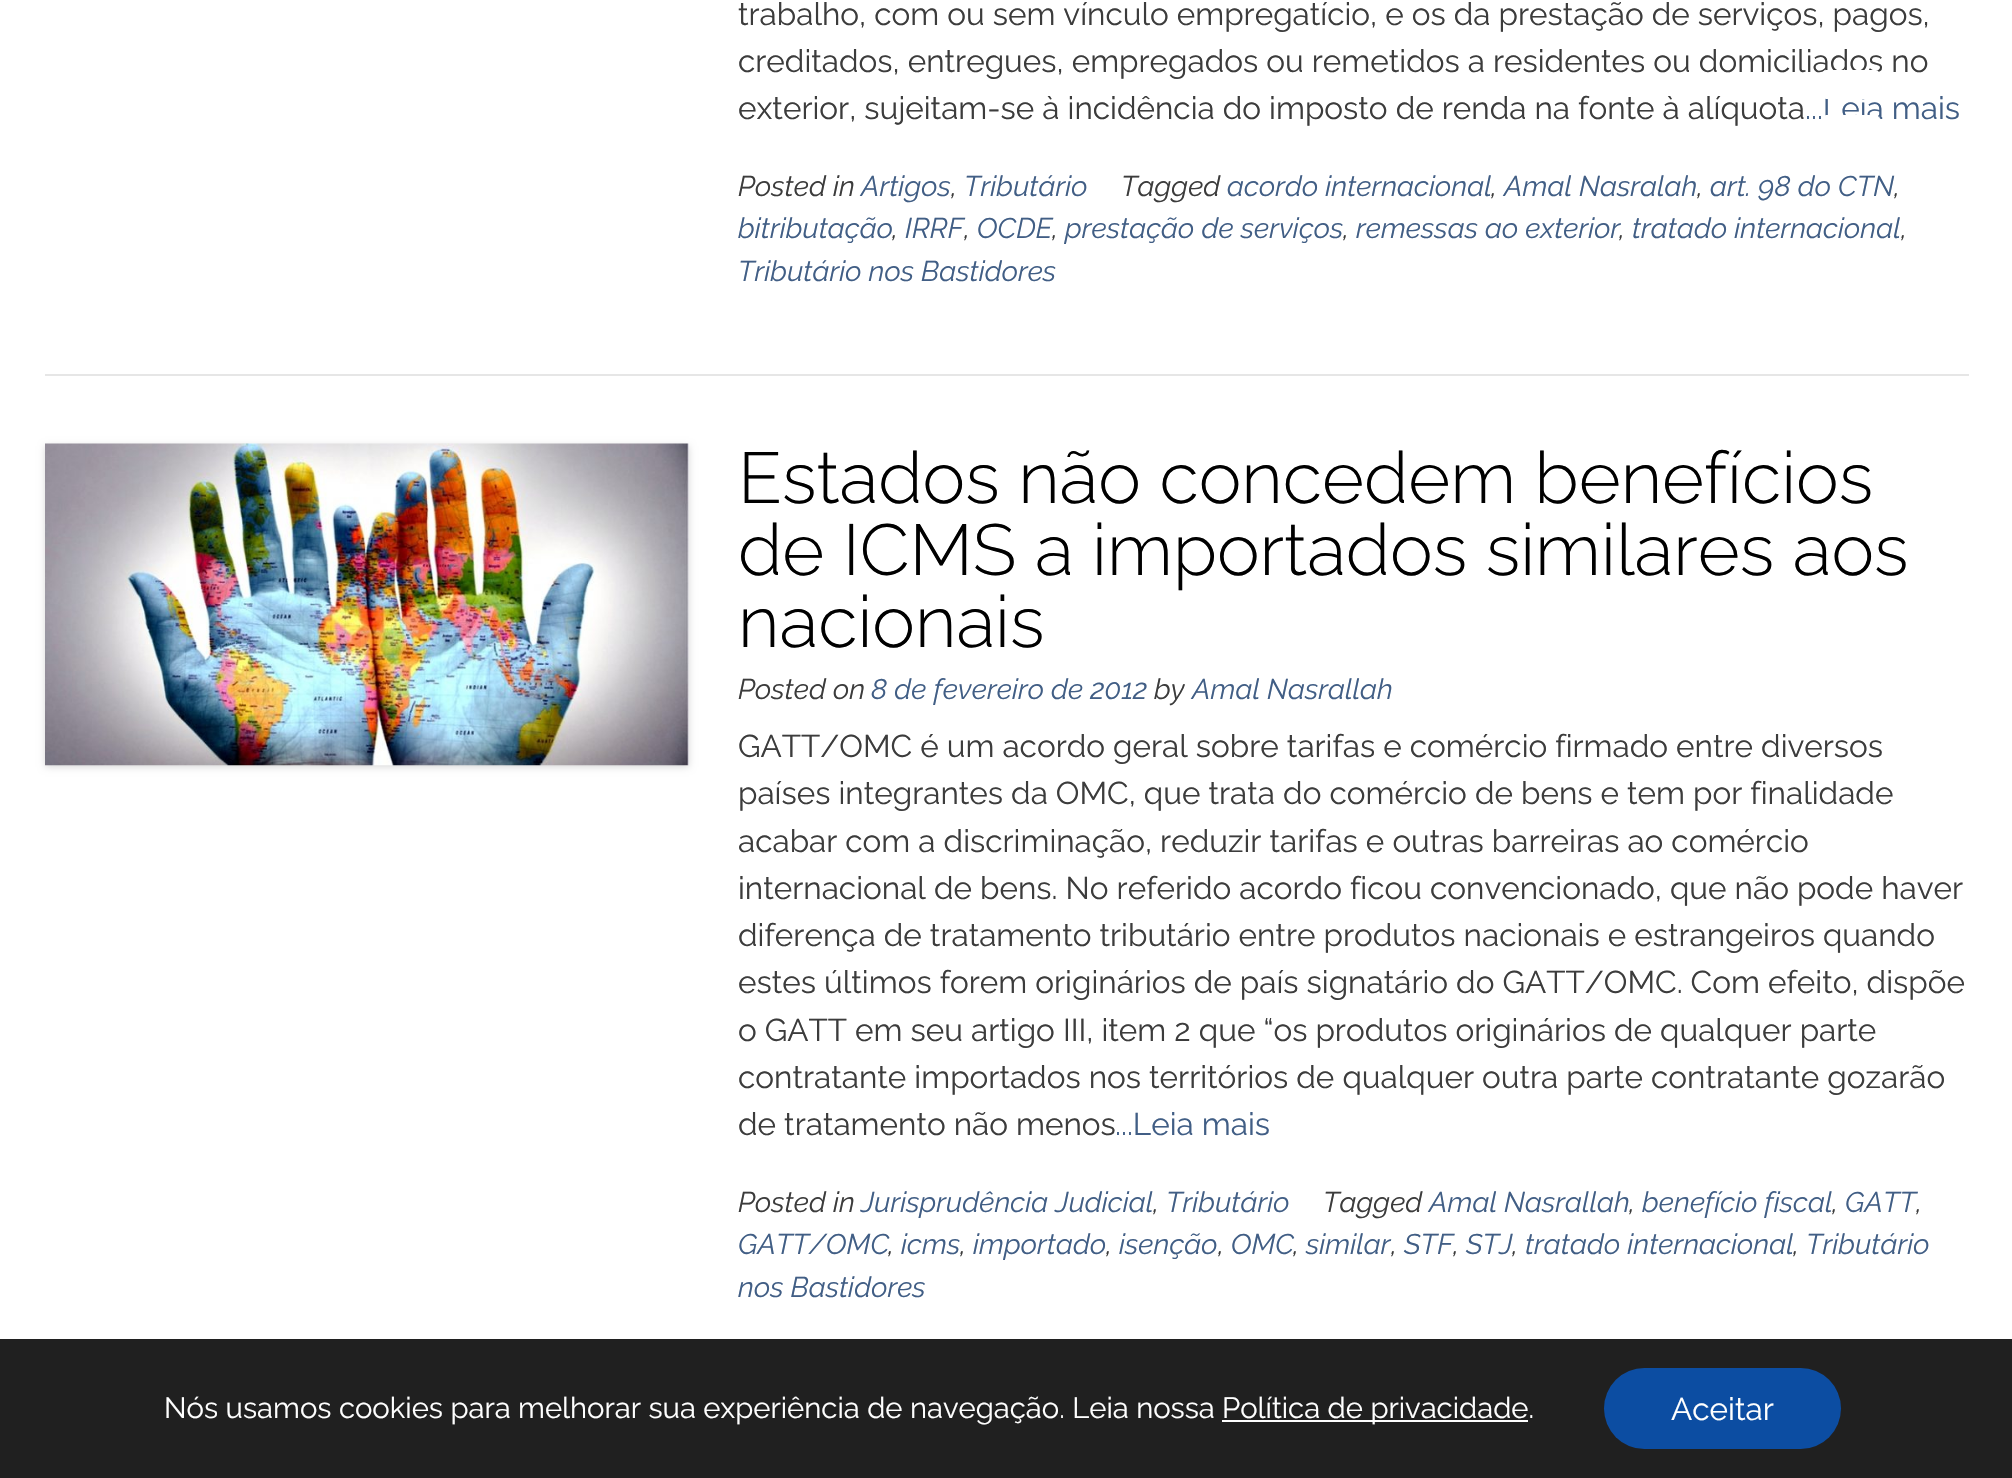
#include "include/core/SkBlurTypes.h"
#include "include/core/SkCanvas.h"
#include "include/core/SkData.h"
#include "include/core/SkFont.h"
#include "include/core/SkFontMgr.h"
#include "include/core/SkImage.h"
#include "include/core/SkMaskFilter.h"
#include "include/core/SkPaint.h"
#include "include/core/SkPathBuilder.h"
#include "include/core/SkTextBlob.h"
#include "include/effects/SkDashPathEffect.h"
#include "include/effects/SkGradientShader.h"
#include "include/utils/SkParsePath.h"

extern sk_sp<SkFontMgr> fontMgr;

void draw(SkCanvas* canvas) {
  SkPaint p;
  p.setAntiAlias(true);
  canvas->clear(SK_ColorWHITE);
  p.setColor(SkColorSetRGB(230, 230, 230));
  canvas->drawRect(SkRect::MakeLTRB(45, 374, 1969, 376), p);
  p.setColor(SkColorSetARGB(38, 0, 0, 0));
  p.setMaskFilter(SkMaskFilter::MakeBlur(kNormal_SkBlurStyle, 3.5f));
  canvas->drawRect(SkRect::MakeLTRB(45, 446, 689, 767), p);
  p.setMaskFilter(nullptr);
  canvas->drawImageRect(SkImages::DeferredFromEncodedData(SkData::MakeFromFileName("images/1.png")), SkRect::MakeLTRB(45, 443, 689, 766), SkSamplingOptions());
  p.setColor(SkColorSetRGB(32, 32, 32));
  canvas->drawRect(SkRect::MakeLTRB(0, 1339, 2012, 1478), p);
  p.setColor(SK_ColorWHITE);
  canvas->drawRect(SkRect::MakeLTRB(1222, 1420, 1528, 1422), p);
  p.setColor(SkColorSetRGB(12, 77, 162));
  canvas->drawRoundRect(SkRect::MakeLTRB(1604, 1368, 1841, 1449), 40.5f, 40.5f, p);
  SkFont font1(fontMgr->matchFamilyStyle("Raleway", SkFontStyle::Normal()), 31.5f);
  font1.setSubpixel(true);
  p.setColor(SkColorSetRGB(60, 60, 60));
  canvas->drawString("trabalho, com ou sem vínculo empregatício, e os da prestação de serviços, pagos,", 738, 25, font1, p);
  canvas->drawString("creditados, entregues, empregados ou remetidos a residentes ou domiciliados no", 738, 72, font1, p);
  canvas->drawString("exterior, sujeitam-se à incidência do imposto de renda na fonte à alíquota", 738, 119, font1, p);
  p.setColor(SkColorSetRGB(65, 94, 133));
  canvas->drawString("...Leia mais", 1805, 119, font1, p);
  SkFont font2(fontMgr->matchFamilyStyle("Raleway", SkFontStyle::Italic()), 28.4f);
  font2.setSubpixel(true);
  p.setColor(SkColorSetRGB(60, 60, 60));
  canvas->drawString("Posted in", 738, 196, font2, p);
  p.setColor(SkColorSetRGB(65, 94, 133));
  canvas->drawString("Artigos", 861, 196, font2, p);
  p.setColor(SkColorSetRGB(60, 60, 60));
  canvas->drawString(",", 951, 196, font2, p);
  p.setColor(SkColorSetRGB(65, 94, 133));
  canvas->drawString("Tributário", 964, 196, font2, p);
  p.setColor(SkColorSetRGB(60, 60, 60));
  canvas->drawString("Tagged", 1121, 196, font2, p);
  p.setColor(SkColorSetRGB(65, 94, 133));
  canvas->drawString("acordo internacional", 1227, 196, font2, p);
  p.setColor(SkColorSetRGB(60, 60, 60));
  canvas->drawString(",", 1491, 196, font2, p);
  p.setColor(SkColorSetRGB(65, 94, 133));
  canvas->drawString("Amal Nasralah", 1504, 196, font2, p);
  p.setColor(SkColorSetRGB(60, 60, 60));
  canvas->drawString(",", 1697, 196, font2, p);
  p.setColor(SkColorSetRGB(65, 94, 133));
  canvas->drawString("art. 98 do CTN", 1710, 196, font2, p);
  p.setColor(SkColorSetRGB(60, 60, 60));
  canvas->drawString(",", 1894, 196, font2, p);
  p.setColor(SkColorSetRGB(65, 94, 133));
  canvas->drawString("bitributação", 738, 238, font2, p);
  p.setColor(SkColorSetRGB(60, 60, 60));
  canvas->drawString(",", 892, 238, font2, p);
  p.setColor(SkColorSetRGB(65, 94, 133));
  canvas->drawString("IRRF", 905, 238, font2, p);
  canvas->drawString("OCDE", 977, 238, font2, p);
  canvas->drawString("prestação de serviços", 1065, 238, font2, p);
  canvas->drawString("remessas ao exterior", 1356, 238, font2, p);
  canvas->drawString("tratado internacional", 1632, 238, font2, p);
  p.setColor(SkColorSetRGB(60, 60, 60));
  canvas->drawString(",", 964, 238, font2, p);
  canvas->drawString(",", 1052, 238, font2, p);
  canvas->drawString(",", 1343, 238, font2, p);
  canvas->drawString(",", 1619, 238, font2, p);
  canvas->drawString(",", 1901, 238, font2, p);
  p.setColor(SkColorSetRGB(65, 94, 133));
  canvas->drawString("Tributário nos Bastidores", 738, 281, font2, p);
  SkFont font3(fontMgr->matchFamilyStyle("Raleway", SkFontStyle(300, SkFontStyle::kNormal_Width, SkFontStyle::kUpright_Slant)), 72);
  font3.setSubpixel(true);
  p.setColor(SK_ColorBLACK);
  canvas->drawString("Estados não concedem benefícios", 738, 503, font3, p);
  canvas->drawString("de ICMS a importados similares aos", 738, 575, font3, p);
  canvas->drawString("nacionais", 738, 647, font3, p);
  p.setColor(SkColorSetRGB(60, 60, 60));
  canvas->drawString("Posted on", 738, 699, font2, p);
  p.setColor(SkColorSetRGB(65, 94, 133));
  canvas->drawString("8 de fevereiro de 2012", 871, 699, font2, p);
  p.setColor(SkColorSetRGB(60, 60, 60));
  canvas->drawString("by", 1154, 699, font2, p);
  p.setColor(SkColorSetRGB(65, 94, 133));
  canvas->drawString("Amal Nasrallah", 1192, 699, font2, p);
  p.setColor(SkColorSetRGB(60, 60, 60));
  canvas->drawString("GATT/OMC é um acordo geral sobre tarifas e comércio firmado entre diversos", 738, 757, font1, p);
  canvas->drawString("países integrantes da OMC, que trata do comércio de bens e tem por finalidade", 738, 804, font1, p);
  canvas->drawString("acabar com a discriminação, reduzir tarifas e outras barreiras ao comércio", 738, 852, font1, p);
  canvas->drawString("internacional de bens. No referido acordo ficou convencionado, que não pode haver", 738, 899, font1, p);
  canvas->drawString("diferença de tratamento tributário entre produtos nacionais e estrangeiros quando", 738, 946, font1, p);
  canvas->drawString("estes últimos forem originários de país signatário do GATT/OMC. Com efeito, dispõe", 738, 993, font1, p);
  canvas->drawString("o GATT em seu artigo III, item 2 que “os produtos originários de qualquer parte", 738, 1041, font1, p);
  canvas->drawString("contratante importados nos territórios de qualquer outra parte contratante gozarão", 738, 1088, font1, p);
  canvas->drawString("de tratamento não menos", 738, 1135, font1, p);
  p.setColor(SkColorSetRGB(65, 94, 133));
  canvas->drawString("...Leia mais", 1115, 1135, font1, p);
  p.setColor(SkColorSetRGB(60, 60, 60));
  canvas->drawString("Posted in", 738, 1212, font2, p);
  p.setColor(SkColorSetRGB(65, 94, 133));
  canvas->drawString("Jurisprudência Judicial", 861, 1212, font2, p);
  p.setColor(SkColorSetRGB(60, 60, 60));
  canvas->drawString(",", 1153, 1212, font2, p);
  p.setColor(SkColorSetRGB(65, 94, 133));
  canvas->drawString("Tributário", 1166, 1212, font2, p);
  p.setColor(SkColorSetRGB(60, 60, 60));
  canvas->drawString("Tagged", 1323, 1212, font2, p);
  p.setColor(SkColorSetRGB(65, 94, 133));
  canvas->drawString("Amal Nasrallah", 1429, 1212, font2, p);
  p.setColor(SkColorSetRGB(60, 60, 60));
  canvas->drawString(",", 1629, 1212, font2, p);
  p.setColor(SkColorSetRGB(65, 94, 133));
  canvas->drawString("benefício fiscal", 1642, 1212, font2, p);
  p.setColor(SkColorSetRGB(60, 60, 60));
  canvas->drawString(",", 1832, 1212, font2, p);
  p.setColor(SkColorSetRGB(65, 94, 133));
  canvas->drawString("GATT", 1845, 1212, font2, p);
  p.setColor(SkColorSetRGB(60, 60, 60));
  canvas->drawString(",", 1916, 1212, font2, p);
  p.setColor(SkColorSetRGB(65, 94, 133));
  canvas->drawString("GATT/OMC", 738, 1254, font2, p);
  p.setColor(SkColorSetRGB(60, 60, 60));
  canvas->drawString(",", 888, 1254, font2, p);
  p.setColor(SkColorSetRGB(65, 94, 133));
  canvas->drawString("icms", 901, 1254, font2, p);
  p.setColor(SkColorSetRGB(60, 60, 60));
  canvas->drawString(",", 960, 1254, font2, p);
  p.setColor(SkColorSetRGB(65, 94, 133));
  canvas->drawString("importado", 973, 1254, font2, p);
  p.setColor(SkColorSetRGB(60, 60, 60));
  canvas->drawString(",", 1106, 1254, font2, p);
  p.setColor(SkColorSetRGB(65, 94, 133));
  canvas->drawString("isenção", 1119, 1254, font2, p);
  p.setColor(SkColorSetRGB(60, 60, 60));
  canvas->drawString(",", 1218, 1254, font2, p);
  p.setColor(SkColorSetRGB(65, 94, 133));
  canvas->drawString("OMC", 1231, 1254, font2, p);
  p.setColor(SkColorSetRGB(60, 60, 60));
  canvas->drawString(",", 1293, 1254, font2, p);
  p.setColor(SkColorSetRGB(65, 94, 133));
  canvas->drawString("similar", 1306, 1254, font2, p);
  p.setColor(SkColorSetRGB(60, 60, 60));
  canvas->drawString(",", 1391, 1254, font2, p);
  p.setColor(SkColorSetRGB(65, 94, 133));
  canvas->drawString("STF", 1404, 1254, font2, p);
  canvas->drawString("STJ", 1466, 1254, font2, p);
  canvas->drawString("tratado internacional", 1525, 1254, font2, p);
  canvas->drawString("Tributário", 1806, 1254, font2, p);
  p.setColor(SkColorSetRGB(60, 60, 60));
  canvas->drawString(",", 1453, 1254, font2, p);
  canvas->drawString(",", 1512, 1254, font2, p);
  canvas->drawString(",", 1793, 1254, font2, p);
  p.setColor(SkColorSetRGB(65, 94, 133));
  canvas->drawString("nos Bastidores", 738, 1297, font2, p);
  p.setColor(SK_ColorWHITE);
  canvas->drawRoundRect(SkRect::MakeLTRB(1823, 92, 1879, 99), 3.5f, 3.5f, p);
  canvas->drawRoundRect(SkRect::MakeLTRB(1823, 70, 1879, 77), 3.5f, 3.5f, p);
  canvas->drawRoundRect(SkRect::MakeLTRB(1823, 115, 1879, 122), 3.5f, 3.5f, p);
  SkFont font4(fontMgr->matchFamilyStyle("Raleway", SkFontStyle::Normal()), 29.25f);
  font4.setSubpixel(true);
  canvas->drawString("Nós usamos cookies para melhorar sua experiência de navegação. Leia nossa", 164, 1418, font4, p);
  canvas->drawString("Política de privacidade.", 1222, 1418, font4, p);
  canvas->drawString("Aceitar", 1671, 1420, font1, p);
}
